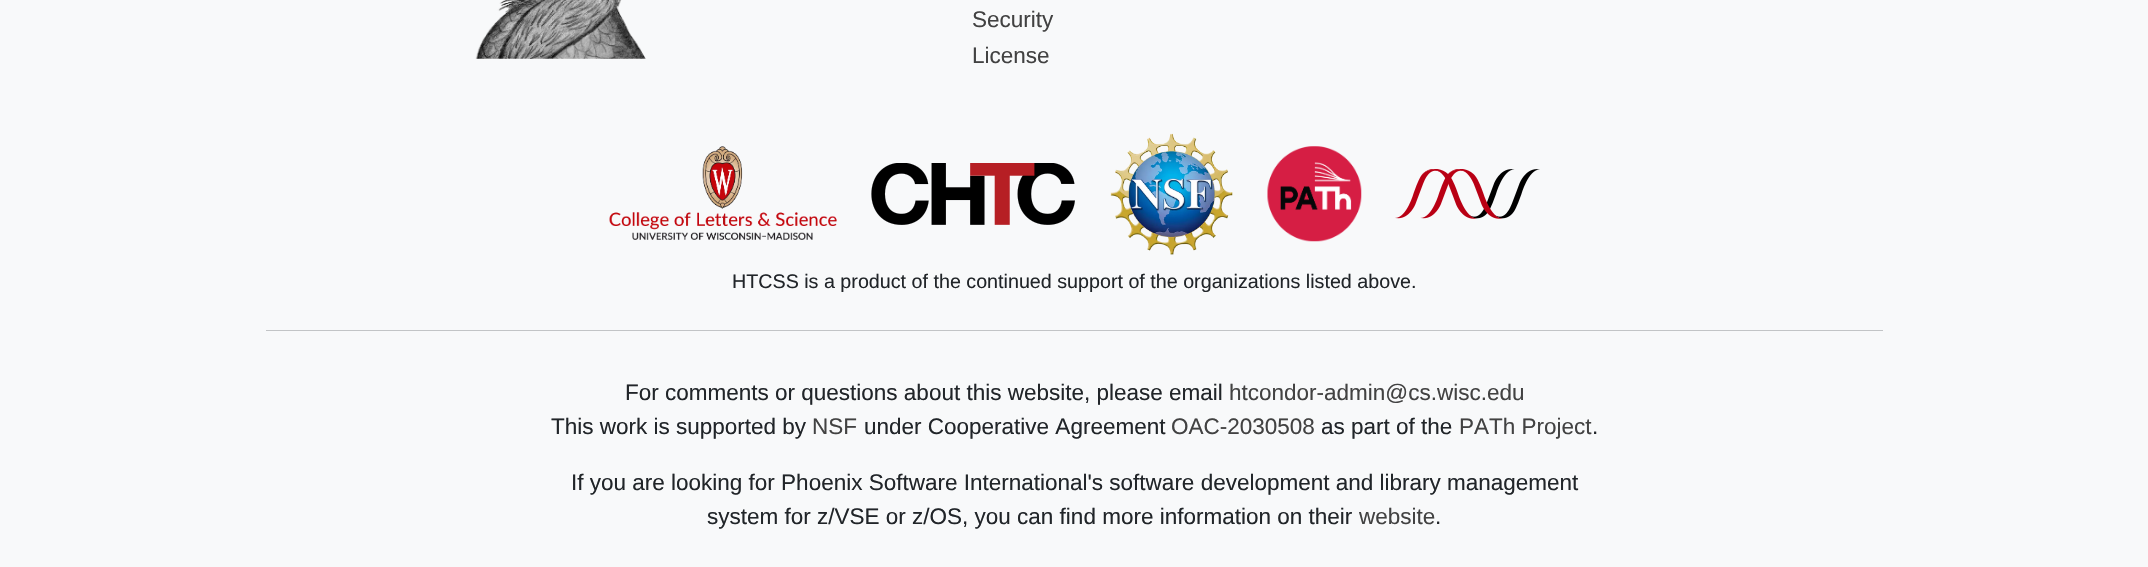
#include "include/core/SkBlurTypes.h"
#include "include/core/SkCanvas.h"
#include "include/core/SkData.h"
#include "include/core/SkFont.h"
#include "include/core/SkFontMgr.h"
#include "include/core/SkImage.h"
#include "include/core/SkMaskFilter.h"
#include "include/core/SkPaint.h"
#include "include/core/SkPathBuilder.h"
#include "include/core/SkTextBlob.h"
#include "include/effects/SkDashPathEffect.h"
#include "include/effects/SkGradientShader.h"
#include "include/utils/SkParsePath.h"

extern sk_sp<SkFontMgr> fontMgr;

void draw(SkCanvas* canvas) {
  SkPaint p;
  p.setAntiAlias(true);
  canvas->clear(SkColorSetRGB(248, 249, 250));
  canvas->drawImageRect(SkImages::DeferredFromEncodedData(SkData::MakeFromFileName("images/1.png")), SkRect::MakeLTRB(475, 0, 646, 59), SkSamplingOptions());
  canvas->drawImageRect(SkImages::DeferredFromEncodedData(SkData::MakeFromFileName("images/2.png")), SkRect::MakeLTRB(609, 146, 837, 240), SkSamplingOptions());
  canvas->drawImageRect(SkImages::DeferredFromEncodedData(SkData::MakeFromFileName("images/3.png")), SkRect::MakeLTRB(871, 163, 1075, 225), SkSamplingOptions());
  canvas->drawImageRect(SkImages::DeferredFromEncodedData(SkData::MakeFromFileName("images/4.png")), SkRect::MakeLTRB(1110, 133, 1233, 255), SkSamplingOptions());
  canvas->drawImageRect(SkImages::DeferredFromEncodedData(SkData::MakeFromFileName("images/5.png")), SkRect::MakeLTRB(1267, 146, 1362, 242), SkSamplingOptions());
  canvas->drawImageRect(SkImages::DeferredFromEncodedData(SkData::MakeFromFileName("images/6.png")), SkRect::MakeLTRB(1395, 169, 1540, 219), SkSamplingOptions());
  p.setColor(SkColorSetRGB(194, 196, 198));
  canvas->drawRect(SkRect::MakeLTRB(266, 330, 1883, 331), p);
  SkFont font1(fontMgr->matchFamilyStyle("Liberation Sans", SkFontStyle::Normal()), 22.5f);
  font1.setSubpixel(true);
  p.setColor(SkColorSetRGB(66, 66, 66));
  canvas->drawString("Security", 972, 27, font1, p);
  canvas->drawString("License", 972, 63, font1, p);
  SkFont font2(fontMgr->matchFamilyStyle("Liberation Sans", SkFontStyle::Normal()), 19.7f);
  font2.setSubpixel(true);
  p.setColor(SkColorSetRGB(33, 37, 41));
  canvas->drawString("HTCSS is a product of the continued support of the organizations listed above.", 732, 288, font2, p);
  canvas->drawString("For comments or questions about this website, please email", 625, 400, font1, p);
  p.setColor(SkColorSetRGB(66, 66, 66));
  canvas->drawString("htcondor-admin@cs.wisc.edu", 1229, 400, font1, p);
  p.setColor(SkColorSetRGB(33, 37, 41));
  canvas->drawString("This work is supported by", 551, 434, font1, p);
  p.setColor(SkColorSetRGB(66, 66, 66));
  canvas->drawString("NSF", 812, 434, font1, p);
  p.setColor(SkColorSetRGB(33, 37, 41));
  canvas->drawString("under Cooperative Agreement", 864, 434, font1, p);
  p.setColor(SkColorSetRGB(66, 66, 66));
  canvas->drawString("OAC-2030508", 1171, 434, font1, p);
  p.setColor(SkColorSetRGB(33, 37, 41));
  canvas->drawString("as part of the", 1321, 434, font1, p);
  p.setColor(SkColorSetRGB(66, 66, 66));
  canvas->drawString("PATh Project", 1459, 434, font1, p);
  p.setColor(SkColorSetRGB(33, 37, 41));
  canvas->drawString(".", 1592, 434, font1, p);
  canvas->drawString("If you are looking for Phoenix Software International's software development and library management", 571, 490, font1, p);
  canvas->drawString("system for z/VSE or z/OS, you can find more information on their", 707, 524, font1, p);
  p.setColor(SkColorSetRGB(66, 66, 66));
  canvas->drawString("website", 1359, 524, font1, p);
  p.setColor(SkColorSetRGB(33, 37, 41));
  canvas->drawString(".", 1435, 524, font1, p);
}
